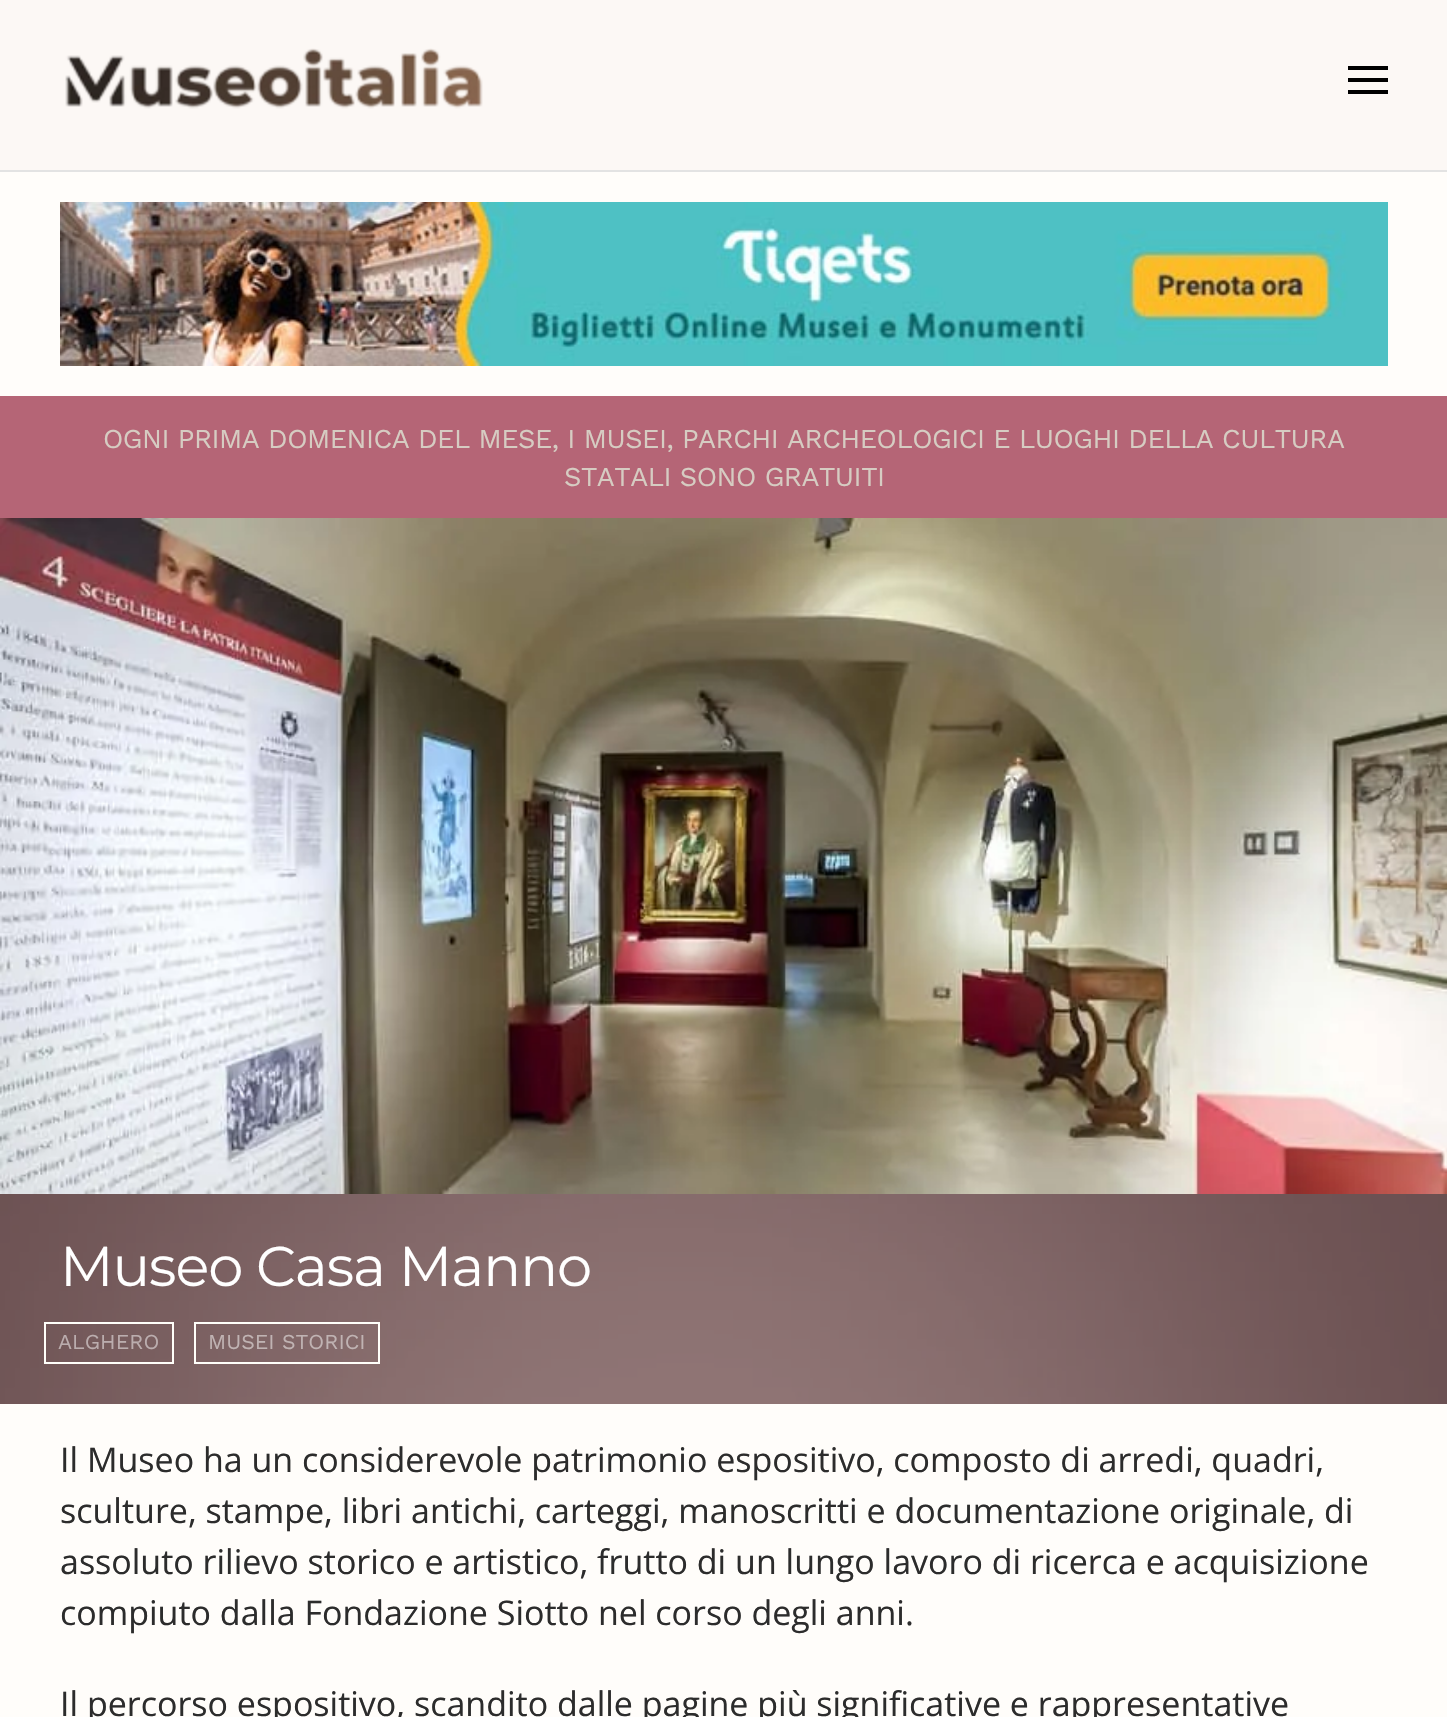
#include "include/core/SkBlurTypes.h"
#include "include/core/SkCanvas.h"
#include "include/core/SkData.h"
#include "include/core/SkFont.h"
#include "include/core/SkFontMgr.h"
#include "include/core/SkImage.h"
#include "include/core/SkMaskFilter.h"
#include "include/core/SkPaint.h"
#include "include/core/SkPathBuilder.h"
#include "include/core/SkTextBlob.h"
#include "include/effects/SkDashPathEffect.h"
#include "include/effects/SkGradientShader.h"
#include "include/utils/SkParsePath.h"

extern sk_sp<SkFontMgr> fontMgr;

void draw(SkCanvas* canvas) {
  SkPaint p;
  p.setAntiAlias(true);
  auto spacedText = [&](const char* s, float x, float y, const SkFont& font, const SkPaint& ink, float letter, float word) {
    std::vector<SkGlyphID> glyphs(font.countText(s, strlen(s), SkTextEncoding::kUTF8));
    std::vector<float> xs(glyphs.size());
    font.textToGlyphs(s, strlen(s), SkTextEncoding::kUTF8, glyphs);
    font.getXPos(glyphs, xs, x);
    float extra = 0;
    for (size_t i = 0; i < glyphs.size(); i++) {
      xs[i] += extra;
      extra += letter + word * (glyphs[i] == font.unicharToGlyph(' '));
    }
    canvas->drawTextBlob(SkTextBlob::MakeFromPosHGlyphs(glyphs, xs, y, font), 0, 0, ink);
  };
  canvas->clear(SkColorSetRGB(255, 253, 250));
  p.setColor(SkColorSetRGB(252, 248, 245));
  canvas->drawRect(SkRect::MakeLTRB(0, 0, 1447, 170), p);
  p.setColor(SkColorSetRGB(227, 227, 227));
  canvas->drawRect(SkRect::MakeLTRB(0, 170, 1447, 172), p);
  canvas->drawImageRect(SkImages::DeferredFromEncodedData(SkData::MakeFromFileName("images/1.png")), SkRect::MakeLTRB(65, 48, 483, 109), SkSamplingOptions());
  p.setColor(SK_ColorBLACK);
  canvas->drawRect(SkRect::MakeLTRB(1348, 66, 1388, 70), p);
  canvas->drawRect(SkRect::MakeLTRB(1348, 78, 1388, 82), p);
  canvas->drawRect(SkRect::MakeLTRB(1348, 90, 1388, 94), p);
  canvas->drawImageRect(SkImages::DeferredFromEncodedData(SkData::MakeFromFileName("images/2.png")), SkRect::MakeLTRB(60, 202, 1388, 366), SkSamplingOptions());
  p.setColor(SkColorSetRGB(181, 101, 118));
  canvas->drawRect(SkRect::MakeLTRB(0, 396, 1447, 518), p);
  canvas->drawImageRect(SkImages::DeferredFromEncodedData(SkData::MakeFromFileName("images/3.png")), SkRect::MakeLTRB(0, 518, 1447, 1194), SkSamplingOptions());
  canvas->drawImageRect(SkImages::DeferredFromEncodedData(SkData::MakeFromFileName("images/4.png")), SkRect::MakeLTRB(0, 1194, 1447, 1404), SkSamplingOptions());
  p.setStyle(SkPaint::kStroke_Style);
  p.setStrokeWidth(2);
  p.setColor(SkColorSetRGB(255, 255, 250));
  canvas->drawRect(SkRect::MakeLTRB(45, 1323, 173, 1363), p);
  canvas->drawRect(SkRect::MakeLTRB(195, 1323, 379, 1363), p);
  SkFont font1(fontMgr->matchFamilyStyle("Work Sans", SkFontStyle::Normal()), 27.2f);
  font1.setSubpixel(true);
  p.setStyle(SkPaint::kFill_Style);
  p.setColor(SkColorSetRGB(214, 204, 194));
  spacedText("OGNI PRIMA DOMENICA DEL MESE, I MUSEI, PARCHI ARCHEOLOGICI E LUOGHI DELLA CULTURA", 103, 448, font1, p, -0.5f, 0);
  spacedText("STATALI SONO GRATUITI", 564, 486, font1, p, -0.5f, 0);
  SkFont font2(fontMgr->matchFamilyStyle("Montserrat", SkFontStyle::Normal()), 56);
  font2.setSubpixel(true);
  p.setColor(SK_ColorWHITE);
  spacedText("Museo Casa Manno", 60, 1286, font2, p, -1, 0);
  SkFont font3(fontMgr->matchFamilyStyle("Work Sans", SkFontStyle::Normal()), 21.25f);
  font3.setSubpixel(true);
  p.setColor(SkColorSetRGB(187, 173, 174));
  canvas->drawString("ALGHERO", 58, 1349, font3, p);
  p.setColor(SkColorSetRGB(192, 179, 179));
  canvas->drawString("MUSEI STORICI", 208, 1349, font3, p);
  SkFont font4(fontMgr->matchFamilyStyle("Open Sans", SkFontStyle::Normal()), 34);
  font4.setSubpixel(true);
  p.setColor(SkColorSetRGB(44, 44, 44));
  canvas->drawString("Il Museo ha un considerevole patrimonio espositivo, composto di arredi, quadri,", 60, 1472, font4, p);
  canvas->drawString("sculture, stampe, libri antichi, carteggi, manoscritti e documentazione originale, di", 60, 1523, font4, p);
  canvas->drawString("assoluto rilievo storico e artistico, frutto di un lungo lavoro di ricerca e acquisizione", 60, 1574, font4, p);
  canvas->drawString("compiuto dalla Fondazione Siotto nel corso degli anni.", 60, 1625, font4, p);
  canvas->drawString("Il percorso espositivo, scandito dalle pagine più significative e rappresentative", 60, 1716, font4, p);
}
